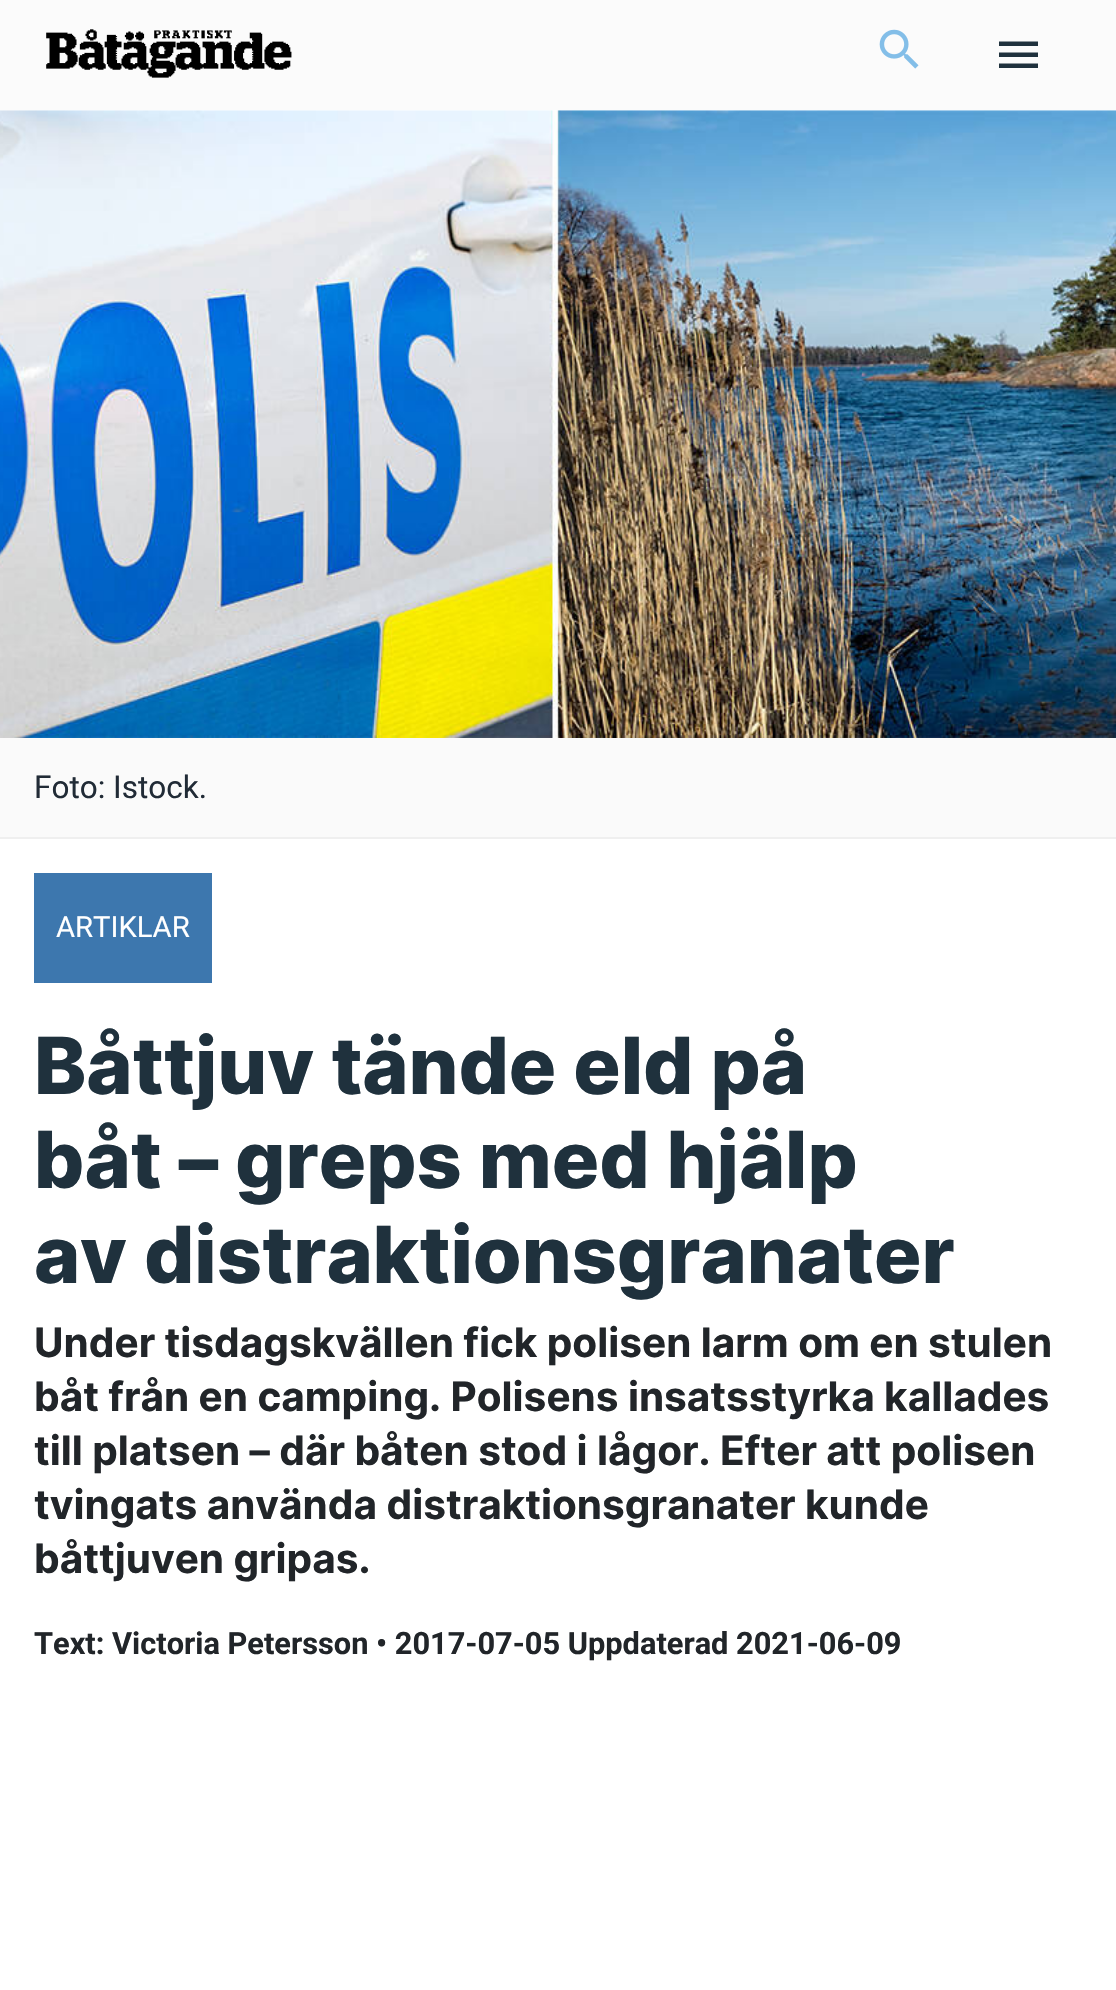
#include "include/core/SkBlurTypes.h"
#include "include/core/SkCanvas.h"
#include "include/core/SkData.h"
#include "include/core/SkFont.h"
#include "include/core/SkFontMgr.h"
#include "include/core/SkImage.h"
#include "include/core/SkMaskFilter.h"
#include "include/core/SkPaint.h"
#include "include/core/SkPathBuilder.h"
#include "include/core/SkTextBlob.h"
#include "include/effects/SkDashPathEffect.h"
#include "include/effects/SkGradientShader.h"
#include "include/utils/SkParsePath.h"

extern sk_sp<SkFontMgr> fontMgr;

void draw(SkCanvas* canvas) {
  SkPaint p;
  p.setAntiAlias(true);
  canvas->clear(SK_ColorWHITE);
  p.setColor(SkColorSetRGB(251, 251, 251));
  canvas->drawRect(SkRect::MakeLTRB(0, 0, 1116, 110), p);
  canvas->drawImageRect(SkImages::DeferredFromEncodedData(SkData::MakeFromFileName("images/1.png")), SkRect::MakeLTRB(46, 29, 292, 78), SkSamplingOptions());
  canvas->drawImageRect(SkImages::DeferredFromEncodedData(SkData::MakeFromFileName("images/2.png")), SkRect::MakeLTRB(879, 29, 919, 69), SkSamplingOptions());
  p.setColor(SkColorSetRGB(31, 49, 61));
  canvas->drawPath(SkPathBuilder().moveTo(999, 41.5f).lineTo(1038, 41.5f).lineTo(1038, 46).lineTo(999, 46).close().moveTo(999, 57).lineTo(999, 52.5f).lineTo(1038, 52.5f).lineTo(1038, 57).close().moveTo(999, 68).lineTo(999, 63.5f).lineTo(1038, 63.5f).lineTo(1038, 68).close().detach(), p);
  canvas->drawImageRect(SkImages::DeferredFromEncodedData(SkData::MakeFromFileName("images/3.png")), SkRect::MakeLTRB(0, 110, 1116, 738), SkSamplingOptions());
  p.setColor(SkColorSetRGB(250, 250, 250));
  canvas->drawRect(SkRect::MakeLTRB(0, 738, 1116, 837), p);
  p.setColor(SkColorSetRGB(239, 239, 239));
  canvas->drawRect(SkRect::MakeLTRB(0, 837, 1116, 839), p);
  p.setColor(SkColorSetRGB(61, 119, 174));
  canvas->drawRect(SkRect::MakeLTRB(34, 873, 212, 983), p);
  SkFont font1(fontMgr->matchFamilyStyle("Roboto", SkFontStyle::Normal()), 31.5f);
  font1.setSubpixel(true);
  p.setColor(SkColorSetRGB(33, 43, 54));
  canvas->drawString("Foto: Istock.", 34, 798, font1, p);
  SkFont font2(fontMgr->matchFamilyStyle("Roboto", SkFontStyle::Normal()), 29.25f);
  font2.setSubpixel(true);
  p.setColor(SK_ColorWHITE);
  canvas->drawString("ARTIKLAR", 56, 937, font2, p);
  SkFont font3(fontMgr->matchFamilyStyle("Inter", SkFontStyle(800, SkFontStyle::kNormal_Width, SkFontStyle::kUpright_Slant)), 78.75f);
  font3.setSubpixel(true);
  p.setColor(SkColorSetRGB(31, 49, 61));
  canvas->drawString("Båttjuv tände eld på", 34, 1094, font3, p);
  canvas->drawString("båt – greps med hjälp", 34, 1188, font3, p);
  canvas->drawString("av distraktionsgranater", 34, 1283, font3, p);
  SkFont font4(fontMgr->matchFamilyStyle("Inter", SkFontStyle::Bold()), 40.5f);
  font4.setSubpixel(true);
  p.setColor(SkColorSetRGB(33, 37, 41));
  canvas->drawString("Under tisdagskvällen fick polisen larm om en stulen", 34, 1357, font4, p);
  canvas->drawString("båt från en camping. Polisens insatsstyrka kallades", 34, 1411, font4, p);
  canvas->drawString("till platsen – där båten stod i lågor. Efter att polisen", 34, 1465, font4, p);
  canvas->drawString("tvingats använda distraktionsgranater kunde", 34, 1519, font4, p);
  canvas->drawString("båttjuven gripas.", 34, 1573, font4, p);
  SkFont font5(fontMgr->matchFamilyStyle("Roboto", SkFontStyle::Bold()), 30.75f);
  font5.setSubpixel(true);
  canvas->drawString("Text: Victoria Petersson • 2017-07-05 Uppdaterad 2021-06-09", 34, 1654, font5, p);
}
